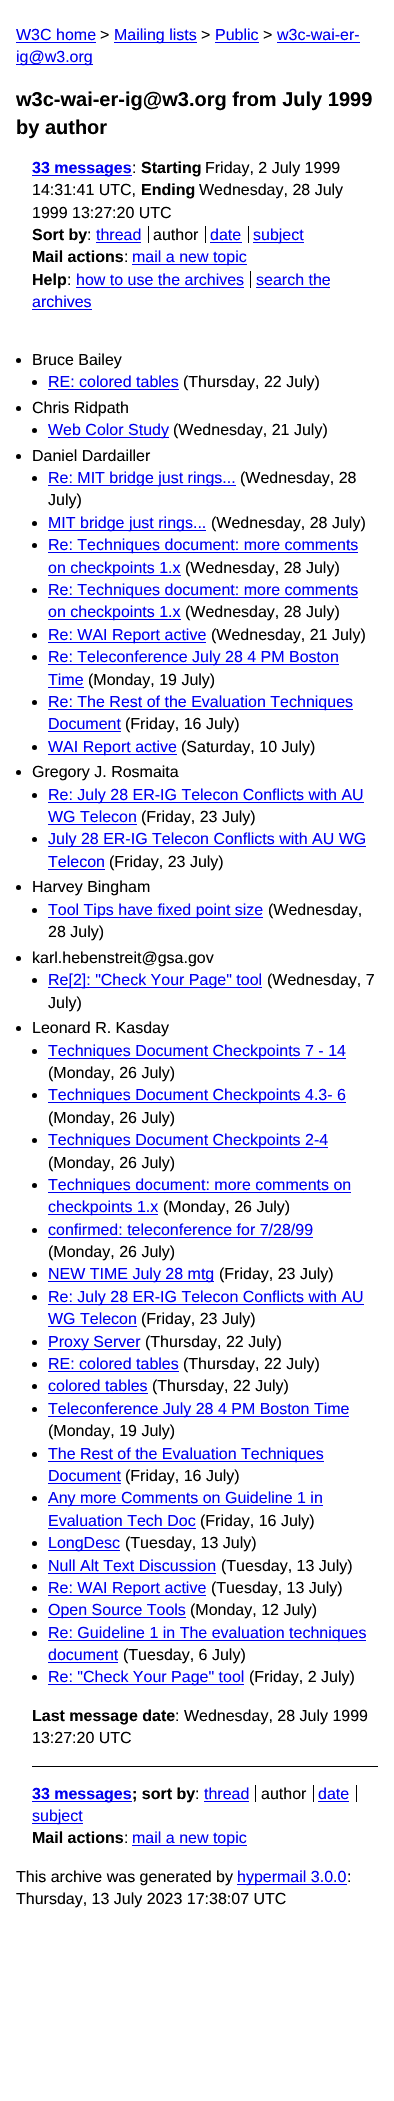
#include "include/core/SkBlurTypes.h"
#include "include/core/SkCanvas.h"
#include "include/core/SkData.h"
#include "include/core/SkFont.h"
#include "include/core/SkFontMgr.h"
#include "include/core/SkImage.h"
#include "include/core/SkMaskFilter.h"
#include "include/core/SkPaint.h"
#include "include/core/SkPathBuilder.h"
#include "include/core/SkTextBlob.h"
#include "include/effects/SkDashPathEffect.h"
#include "include/effects/SkGradientShader.h"
#include "include/utils/SkParsePath.h"

extern sk_sp<SkFontMgr> fontMgr;

void draw(SkCanvas* canvas) {
  SkPaint p;
  p.setAntiAlias(true);
  canvas->clear(SK_ColorWHITE);
  p.setColor(SkColorSetRGB(0, 0, 238));
  canvas->drawRect(SkRect::MakeLTRB(16, 42, 96, 43), p);
  canvas->drawRect(SkRect::MakeLTRB(114, 42, 197, 43), p);
  canvas->drawRect(SkRect::MakeLTRB(215, 42, 259, 43), p);
  canvas->drawRect(SkRect::MakeLTRB(277, 42, 360, 43), p);
  canvas->drawRect(SkRect::MakeLTRB(16, 64, 93, 65), p);
  canvas->drawRect(SkRect::MakeLTRB(32, 175, 132, 176), p);
  canvas->drawRect(SkRect::MakeLTRB(96, 242, 141, 243), p);
  p.setColor(SK_ColorBLACK);
  canvas->drawRect(SkRect::MakeLTRB(148, 226, 149, 243), p);
  canvas->drawRect(SkRect::MakeLTRB(205, 226, 206, 243), p);
  canvas->drawRect(SkRect::MakeLTRB(248, 226, 249, 243), p);
  p.setColor(SkColorSetRGB(0, 0, 238));
  canvas->drawRect(SkRect::MakeLTRB(210, 242, 242, 243), p);
  canvas->drawRect(SkRect::MakeLTRB(253, 242, 304, 243), p);
  canvas->drawRect(SkRect::MakeLTRB(132, 264, 247, 265), p);
  canvas->drawRect(SkRect::MakeLTRB(76, 287, 244, 288), p);
  p.setColor(SK_ColorBLACK);
  canvas->drawRect(SkRect::MakeLTRB(250, 271, 251, 288), p);
  p.setColor(SkColorSetRGB(0, 0, 238));
  canvas->drawRect(SkRect::MakeLTRB(256, 287, 330, 288), p);
  canvas->drawRect(SkRect::MakeLTRB(32, 309, 92, 310), p);
  p.setColor(SK_ColorBLACK);
  canvas->drawRect(SkRect::MakeLTRB(32, 1766, 378, 1767), p);
  canvas->drawCircle(18.5f, 360.5f, 2.5f, p);
  canvas->drawCircle(34.5f, 382.5f, 2.5f, p);
  p.setColor(SkColorSetRGB(0, 0, 238));
  canvas->drawRect(SkRect::MakeLTRB(48, 389, 179, 390), p);
  p.setColor(SK_ColorBLACK);
  canvas->drawCircle(18.5f, 408.5f, 2.5f, p);
  canvas->drawCircle(34.5f, 430.5f, 2.5f, p);
  p.setColor(SkColorSetRGB(0, 0, 238));
  canvas->drawRect(SkRect::MakeLTRB(48, 437, 169, 438), p);
  p.setColor(SK_ColorBLACK);
  canvas->drawCircle(18.5f, 456.5f, 2.5f, p);
  canvas->drawCircle(34.5f, 478.5f, 2.5f, p);
  p.setColor(SkColorSetRGB(0, 0, 238));
  canvas->drawRect(SkRect::MakeLTRB(48, 485, 236, 486), p);
  p.setColor(SK_ColorBLACK);
  canvas->drawCircle(34.5f, 523.5f, 2.5f, p);
  p.setColor(SkColorSetRGB(0, 0, 238));
  canvas->drawRect(SkRect::MakeLTRB(48, 530, 206, 531), p);
  p.setColor(SK_ColorBLACK);
  canvas->drawCircle(34.5f, 545.5f, 2.5f, p);
  p.setColor(SkColorSetRGB(0, 0, 238));
  canvas->drawRect(SkRect::MakeLTRB(48, 552, 358, 553), p);
  canvas->drawRect(SkRect::MakeLTRB(48, 575, 181, 576), p);
  p.setColor(SK_ColorBLACK);
  canvas->drawCircle(34.5f, 590.5f, 2.5f, p);
  p.setColor(SkColorSetRGB(0, 0, 238));
  canvas->drawRect(SkRect::MakeLTRB(48, 597, 358, 598), p);
  canvas->drawRect(SkRect::MakeLTRB(48, 619, 181, 620), p);
  p.setColor(SK_ColorBLACK);
  canvas->drawCircle(34.5f, 635.5f, 2.5f, p);
  p.setColor(SkColorSetRGB(0, 0, 238));
  canvas->drawRect(SkRect::MakeLTRB(48, 642, 206, 643), p);
  p.setColor(SK_ColorBLACK);
  canvas->drawCircle(34.5f, 657.5f, 2.5f, p);
  p.setColor(SkColorSetRGB(0, 0, 238));
  canvas->drawRect(SkRect::MakeLTRB(48, 664, 339, 665), p);
  canvas->drawRect(SkRect::MakeLTRB(48, 687, 84, 688), p);
  p.setColor(SK_ColorBLACK);
  canvas->drawCircle(34.5f, 702.5f, 2.5f, p);
  p.setColor(SkColorSetRGB(0, 0, 238));
  canvas->drawRect(SkRect::MakeLTRB(48, 709, 353, 710), p);
  canvas->drawRect(SkRect::MakeLTRB(48, 731, 121, 732), p);
  p.setColor(SK_ColorBLACK);
  canvas->drawCircle(34.5f, 747.5f, 2.5f, p);
  p.setColor(SkColorSetRGB(0, 0, 238));
  canvas->drawRect(SkRect::MakeLTRB(48, 754, 177, 755), p);
  p.setColor(SK_ColorBLACK);
  canvas->drawCircle(18.5f, 772.5f, 2.5f, p);
  canvas->drawCircle(34.5f, 795.5f, 2.5f, p);
  p.setColor(SkColorSetRGB(0, 0, 238));
  canvas->drawRect(SkRect::MakeLTRB(48, 802, 364, 803), p);
  canvas->drawRect(SkRect::MakeLTRB(48, 824, 137, 825), p);
  p.setColor(SK_ColorBLACK);
  canvas->drawCircle(34.5f, 839.5f, 2.5f, p);
  p.setColor(SkColorSetRGB(0, 0, 238));
  canvas->drawRect(SkRect::MakeLTRB(48, 846, 366, 847), p);
  canvas->drawRect(SkRect::MakeLTRB(48, 869, 105, 870), p);
  p.setColor(SK_ColorBLACK);
  canvas->drawCircle(18.5f, 887.5f, 2.5f, p);
  canvas->drawCircle(34.5f, 910.5f, 2.5f, p);
  p.setColor(SkColorSetRGB(0, 0, 238));
  canvas->drawRect(SkRect::MakeLTRB(48, 917, 263, 918), p);
  p.setColor(SK_ColorBLACK);
  canvas->drawCircle(18.5f, 958.5f, 2.5f, p);
  canvas->drawCircle(34.5f, 980.5f, 2.5f, p);
  p.setColor(SkColorSetRGB(0, 0, 238));
  canvas->drawRect(SkRect::MakeLTRB(48, 987, 262, 988), p);
  p.setColor(SK_ColorBLACK);
  canvas->drawCircle(18.5f, 1028.5f, 2.5f, p);
  canvas->drawCircle(34.5f, 1051.5f, 2.5f, p);
  p.setColor(SkColorSetRGB(0, 0, 238));
  canvas->drawRect(SkRect::MakeLTRB(48, 1058, 346, 1059), p);
  p.setColor(SK_ColorBLACK);
  canvas->drawCircle(34.5f, 1095.5f, 2.5f, p);
  p.setColor(SkColorSetRGB(0, 0, 238));
  canvas->drawRect(SkRect::MakeLTRB(48, 1102, 346, 1103), p);
  p.setColor(SK_ColorBLACK);
  canvas->drawCircle(34.5f, 1140.5f, 2.5f, p);
  p.setColor(SkColorSetRGB(0, 0, 238));
  canvas->drawRect(SkRect::MakeLTRB(48, 1147, 328, 1148), p);
  p.setColor(SK_ColorBLACK);
  canvas->drawCircle(34.5f, 1185.5f, 2.5f, p);
  p.setColor(SkColorSetRGB(0, 0, 238));
  canvas->drawRect(SkRect::MakeLTRB(48, 1192, 351, 1193), p);
  canvas->drawRect(SkRect::MakeLTRB(48, 1214, 158, 1215), p);
  p.setColor(SK_ColorBLACK);
  canvas->drawCircle(34.5f, 1230.5f, 2.5f, p);
  p.setColor(SkColorSetRGB(0, 0, 238));
  canvas->drawRect(SkRect::MakeLTRB(48, 1237, 313, 1238), p);
  p.setColor(SK_ColorBLACK);
  canvas->drawCircle(34.5f, 1274.5f, 2.5f, p);
  p.setColor(SkColorSetRGB(0, 0, 238));
  canvas->drawRect(SkRect::MakeLTRB(48, 1281, 214, 1282), p);
  p.setColor(SK_ColorBLACK);
  canvas->drawCircle(34.5f, 1297.5f, 2.5f, p);
  p.setColor(SkColorSetRGB(0, 0, 238));
  canvas->drawRect(SkRect::MakeLTRB(48, 1304, 364, 1305), p);
  canvas->drawRect(SkRect::MakeLTRB(48, 1326, 137, 1327), p);
  p.setColor(SK_ColorBLACK);
  canvas->drawCircle(34.5f, 1342.5f, 2.5f, p);
  p.setColor(SkColorSetRGB(0, 0, 238));
  canvas->drawRect(SkRect::MakeLTRB(48, 1349, 140, 1350), p);
  p.setColor(SK_ColorBLACK);
  canvas->drawCircle(34.5f, 1364.5f, 2.5f, p);
  p.setColor(SkColorSetRGB(0, 0, 238));
  canvas->drawRect(SkRect::MakeLTRB(48, 1371, 179, 1372), p);
  p.setColor(SK_ColorBLACK);
  canvas->drawCircle(34.5f, 1386.5f, 2.5f, p);
  p.setColor(SkColorSetRGB(0, 0, 238));
  canvas->drawRect(SkRect::MakeLTRB(48, 1393, 148, 1394), p);
  p.setColor(SK_ColorBLACK);
  canvas->drawCircle(34.5f, 1409.5f, 2.5f, p);
  p.setColor(SkColorSetRGB(0, 0, 238));
  canvas->drawRect(SkRect::MakeLTRB(48, 1416, 349, 1417), p);
  p.setColor(SK_ColorBLACK);
  canvas->drawCircle(34.5f, 1454.5f, 2.5f, p);
  p.setColor(SkColorSetRGB(0, 0, 238));
  canvas->drawRect(SkRect::MakeLTRB(48, 1461, 324, 1462), p);
  canvas->drawRect(SkRect::MakeLTRB(48, 1483, 121, 1484), p);
  p.setColor(SK_ColorBLACK);
  canvas->drawCircle(34.5f, 1498.5f, 2.5f, p);
  p.setColor(SkColorSetRGB(0, 0, 238));
  canvas->drawRect(SkRect::MakeLTRB(48, 1505, 323, 1506), p);
  canvas->drawRect(SkRect::MakeLTRB(48, 1528, 196, 1529), p);
  p.setColor(SK_ColorBLACK);
  canvas->drawCircle(34.5f, 1543.5f, 2.5f, p);
  p.setColor(SkColorSetRGB(0, 0, 238));
  canvas->drawRect(SkRect::MakeLTRB(48, 1550, 120, 1551), p);
  p.setColor(SK_ColorBLACK);
  canvas->drawCircle(34.5f, 1566.5f, 2.5f, p);
  p.setColor(SkColorSetRGB(0, 0, 238));
  canvas->drawRect(SkRect::MakeLTRB(48, 1573, 216, 1574), p);
  p.setColor(SK_ColorBLACK);
  canvas->drawCircle(34.5f, 1588.5f, 2.5f, p);
  p.setColor(SkColorSetRGB(0, 0, 238));
  canvas->drawRect(SkRect::MakeLTRB(48, 1595, 206, 1596), p);
  p.setColor(SK_ColorBLACK);
  canvas->drawCircle(34.5f, 1610.5f, 2.5f, p);
  p.setColor(SkColorSetRGB(0, 0, 238));
  canvas->drawRect(SkRect::MakeLTRB(48, 1617, 186, 1618), p);
  p.setColor(SK_ColorBLACK);
  canvas->drawCircle(34.5f, 1633.5f, 2.5f, p);
  p.setColor(SkColorSetRGB(0, 0, 238));
  canvas->drawRect(SkRect::MakeLTRB(48, 1640, 366, 1641), p);
  canvas->drawRect(SkRect::MakeLTRB(48, 1662, 118, 1663), p);
  p.setColor(SK_ColorBLACK);
  canvas->drawCircle(34.5f, 1677.5f, 2.5f, p);
  p.setColor(SkColorSetRGB(0, 0, 238));
  canvas->drawRect(SkRect::MakeLTRB(48, 1684, 244, 1685), p);
  canvas->drawRect(SkRect::MakeLTRB(32, 1801, 132, 1802), p);
  canvas->drawRect(SkRect::MakeLTRB(204, 1801, 249, 1802), p);
  p.setColor(SK_ColorBLACK);
  canvas->drawRect(SkRect::MakeLTRB(255, 1785, 256, 1802), p);
  canvas->drawRect(SkRect::MakeLTRB(313, 1785, 314, 1802), p);
  canvas->drawRect(SkRect::MakeLTRB(356, 1785, 357, 1802), p);
  p.setColor(SkColorSetRGB(0, 0, 238));
  canvas->drawRect(SkRect::MakeLTRB(318, 1801, 349, 1802), p);
  canvas->drawRect(SkRect::MakeLTRB(32, 1823, 83, 1824), p);
  canvas->drawRect(SkRect::MakeLTRB(132, 1845, 247, 1846), p);
  canvas->drawRect(SkRect::MakeLTRB(237, 1884, 347, 1885), p);
  SkFont font1(fontMgr->matchFamilyStyle("Liberation Sans", SkFontStyle::Normal()), 16);
  font1.setSubpixel(true);
  canvas->drawString("W3C home", 16, 40, font1, p);
  p.setColor(SK_ColorBLACK);
  canvas->drawString(">", 100, 40, font1, p);
  p.setColor(SkColorSetRGB(0, 0, 238));
  canvas->drawString("Mailing lists", 114, 40, font1, p);
  p.setColor(SK_ColorBLACK);
  canvas->drawString(">", 201, 40, font1, p);
  p.setColor(SkColorSetRGB(0, 0, 238));
  canvas->drawString("Public", 215, 40, font1, p);
  p.setColor(SK_ColorBLACK);
  canvas->drawString(">", 263, 40, font1, p);
  p.setColor(SkColorSetRGB(0, 0, 238));
  canvas->drawString("w3c-wai-er-", 277, 40, font1, p);
  canvas->drawString("ig@w3.org", 16, 62, font1, p);
  SkFont font2(fontMgr->matchFamilyStyle("Liberation Sans", SkFontStyle::Bold()), 20);
  font2.setSubpixel(true);
  p.setColor(SK_ColorBLACK);
  canvas->drawString("w3c-wai-er-ig@w3.org from July 1999", 16, 106, font2, p);
  canvas->drawString("by author", 16, 134, font2, p);
  SkFont font3(fontMgr->matchFamilyStyle("Liberation Sans", SkFontStyle::Bold()), 16);
  font3.setSubpixel(true);
  p.setColor(SkColorSetRGB(0, 0, 238));
  canvas->drawString("33 messages", 32, 173, font3, p);
  p.setColor(SK_ColorBLACK);
  canvas->drawString(":", 132, 173, font1, p);
  canvas->drawString("Starting", 141, 173, font3, p);
  canvas->drawString("Friday, 2 July 1999", 205, 173, font1, p);
  canvas->drawString("14:31:41 UTC,", 32, 195, font1, p);
  canvas->drawString("Ending", 141, 195, font3, p);
  canvas->drawString("Wednesday, 28 July", 199, 195, font1, p);
  canvas->drawString("1999 13:27:20 UTC", 32, 218, font1, p);
  canvas->drawString("Sort by", 32, 240, font3, p);
  canvas->drawString(":", 87, 240, font1, p);
  p.setColor(SkColorSetRGB(0, 0, 238));
  canvas->drawString("thread", 96, 240, font1, p);
  p.setColor(SK_ColorBLACK);
  canvas->drawString("author", 153, 240, font1, p);
  p.setColor(SkColorSetRGB(0, 0, 238));
  canvas->drawString("date", 210, 240, font1, p);
  canvas->drawString("subject", 253, 240, font1, p);
  p.setColor(SK_ColorBLACK);
  canvas->drawString("Mail actions", 32, 262, font3, p);
  canvas->drawString(":", 124, 262, font1, p);
  p.setColor(SkColorSetRGB(0, 0, 238));
  canvas->drawString("mail a new topic", 132, 262, font1, p);
  p.setColor(SK_ColorBLACK);
  canvas->drawString("Help", 32, 285, font3, p);
  canvas->drawString(":", 67, 285, font1, p);
  p.setColor(SkColorSetRGB(0, 0, 238));
  canvas->drawString("how to use the archives", 76, 285, font1, p);
  canvas->drawString("search the", 256, 285, font1, p);
  canvas->drawString("archives", 32, 307, font1, p);
  p.setColor(SK_ColorBLACK);
  canvas->drawString("Bruce Bailey", 32, 365, font1, p);
  p.setColor(SkColorSetRGB(0, 0, 238));
  canvas->drawString("RE: colored tables", 48, 387, font1, p);
  p.setColor(SK_ColorBLACK);
  canvas->drawString("(Thursday, 22 July)", 183, 387, font1, p);
  canvas->drawString("Chris Ridpath", 32, 413, font1, p);
  p.setColor(SkColorSetRGB(0, 0, 238));
  canvas->drawString("Web Color Study", 48, 435, font1, p);
  p.setColor(SK_ColorBLACK);
  canvas->drawString("(Wednesday, 21 July)", 173, 435, font1, p);
  canvas->drawString("Daniel Dardailler", 32, 461, font1, p);
  p.setColor(SkColorSetRGB(0, 0, 238));
  canvas->drawString("Re: MIT bridge just rings...", 48, 483, font1, p);
  p.setColor(SK_ColorBLACK);
  canvas->drawString("(Wednesday, 28", 240, 483, font1, p);
  canvas->drawString("July)", 48, 505, font1, p);
  p.setColor(SkColorSetRGB(0, 0, 238));
  canvas->drawString("MIT bridge just rings...", 48, 528, font1, p);
  p.setColor(SK_ColorBLACK);
  canvas->drawString("(Wednesday, 28 July)", 211, 528, font1, p);
  p.setColor(SkColorSetRGB(0, 0, 238));
  canvas->drawString("Re: Techniques document: more comments", 48, 550, font1, p);
  canvas->drawString("on checkpoints 1.x", 48, 573, font1, p);
  p.setColor(SK_ColorBLACK);
  canvas->drawString("(Wednesday, 28 July)", 185, 573, font1, p);
  p.setColor(SkColorSetRGB(0, 0, 238));
  canvas->drawString("Re: Techniques document: more comments", 48, 595, font1, p);
  canvas->drawString("on checkpoints 1.x", 48, 617, font1, p);
  p.setColor(SK_ColorBLACK);
  canvas->drawString("(Wednesday, 28 July)", 185, 617, font1, p);
  p.setColor(SkColorSetRGB(0, 0, 238));
  canvas->drawString("Re: WAI Report active", 48, 640, font1, p);
  p.setColor(SK_ColorBLACK);
  canvas->drawString("(Wednesday, 21 July)", 211, 640, font1, p);
  p.setColor(SkColorSetRGB(0, 0, 238));
  canvas->drawString("Re: Teleconference July 28 4 PM Boston", 48, 662, font1, p);
  canvas->drawString("Time", 48, 685, font1, p);
  p.setColor(SK_ColorBLACK);
  canvas->drawString("(Monday, 19 July)", 88, 685, font1, p);
  p.setColor(SkColorSetRGB(0, 0, 238));
  canvas->drawString("Re: The Rest of the Evaluation Techniques", 48, 707, font1, p);
  canvas->drawString("Document", 48, 729, font1, p);
  p.setColor(SK_ColorBLACK);
  canvas->drawString("(Friday, 16 July)", 125, 729, font1, p);
  p.setColor(SkColorSetRGB(0, 0, 238));
  canvas->drawString("WAI Report active", 48, 752, font1, p);
  p.setColor(SK_ColorBLACK);
  canvas->drawString("(Saturday, 10 July)", 181, 752, font1, p);
  canvas->drawString("Gregory J. Rosmaita", 32, 777, font1, p);
  p.setColor(SkColorSetRGB(0, 0, 238));
  canvas->drawString("Re: July 28 ER-IG Telecon Conflicts with AU", 48, 800, font1, p);
  canvas->drawString("WG Telecon", 48, 822, font1, p);
  p.setColor(SK_ColorBLACK);
  canvas->drawString("(Friday, 23 July)", 141, 822, font1, p);
  p.setColor(SkColorSetRGB(0, 0, 238));
  canvas->drawString("July 28 ER-IG Telecon Conflicts with AU WG", 48, 844, font1, p);
  canvas->drawString("Telecon", 48, 867, font1, p);
  p.setColor(SK_ColorBLACK);
  canvas->drawString("(Friday, 23 July)", 109, 867, font1, p);
  canvas->drawString("Harvey Bingham", 32, 892, font1, p);
  p.setColor(SkColorSetRGB(0, 0, 238));
  canvas->drawString("Tool Tips have fixed point size", 48, 915, font1, p);
  p.setColor(SK_ColorBLACK);
  canvas->drawString("(Wednesday,", 268, 915, font1, p);
  canvas->drawString("28 July)", 48, 937, font1, p);
  canvas->drawString("karl.hebenstreit@gsa.gov", 32, 963, font1, p);
  p.setColor(SkColorSetRGB(0, 0, 238));
  canvas->drawString("Re[2]: \"Check Your Page\" tool", 48, 985, font1, p);
  p.setColor(SK_ColorBLACK);
  canvas->drawString("(Wednesday, 7", 267, 985, font1, p);
  canvas->drawString("July)", 48, 1008, font1, p);
  canvas->drawString("Leonard R. Kasday", 32, 1033, font1, p);
  p.setColor(SkColorSetRGB(0, 0, 238));
  canvas->drawString("Techniques Document Checkpoints 7 - 14", 48, 1056, font1, p);
  p.setColor(SK_ColorBLACK);
  canvas->drawString("(Monday, 26 July)", 48, 1078, font1, p);
  p.setColor(SkColorSetRGB(0, 0, 238));
  canvas->drawString("Techniques Document Checkpoints 4.3- 6", 48, 1100, font1, p);
  p.setColor(SK_ColorBLACK);
  canvas->drawString("(Monday, 26 July)", 48, 1123, font1, p);
  p.setColor(SkColorSetRGB(0, 0, 238));
  canvas->drawString("Techniques Document Checkpoints 2-4", 48, 1145, font1, p);
  p.setColor(SK_ColorBLACK);
  canvas->drawString("(Monday, 26 July)", 48, 1168, font1, p);
  p.setColor(SkColorSetRGB(0, 0, 238));
  canvas->drawString("Techniques document: more comments on", 48, 1190, font1, p);
  canvas->drawString("checkpoints 1.x", 48, 1212, font1, p);
  p.setColor(SK_ColorBLACK);
  canvas->drawString("(Monday, 26 July)", 163, 1212, font1, p);
  p.setColor(SkColorSetRGB(0, 0, 238));
  canvas->drawString("confirmed: teleconference for 7/28/99", 48, 1235, font1, p);
  p.setColor(SK_ColorBLACK);
  canvas->drawString("(Monday, 26 July)", 48, 1257, font1, p);
  p.setColor(SkColorSetRGB(0, 0, 238));
  canvas->drawString("NEW TIME July 28 mtg", 48, 1279, font1, p);
  p.setColor(SK_ColorBLACK);
  canvas->drawString("(Friday, 23 July)", 219, 1279, font1, p);
  p.setColor(SkColorSetRGB(0, 0, 238));
  canvas->drawString("Re: July 28 ER-IG Telecon Conflicts with AU", 48, 1302, font1, p);
  canvas->drawString("WG Telecon", 48, 1324, font1, p);
  p.setColor(SK_ColorBLACK);
  canvas->drawString("(Friday, 23 July)", 141, 1324, font1, p);
  p.setColor(SkColorSetRGB(0, 0, 238));
  canvas->drawString("Proxy Server", 48, 1347, font1, p);
  p.setColor(SK_ColorBLACK);
  canvas->drawString("(Thursday, 22 July)", 145, 1347, font1, p);
  p.setColor(SkColorSetRGB(0, 0, 238));
  canvas->drawString("RE: colored tables", 48, 1369, font1, p);
  p.setColor(SK_ColorBLACK);
  canvas->drawString("(Thursday, 22 July)", 183, 1369, font1, p);
  p.setColor(SkColorSetRGB(0, 0, 238));
  canvas->drawString("colored tables", 48, 1391, font1, p);
  p.setColor(SK_ColorBLACK);
  canvas->drawString("(Thursday, 22 July)", 152, 1391, font1, p);
  p.setColor(SkColorSetRGB(0, 0, 238));
  canvas->drawString("Teleconference July 28 4 PM Boston Time", 48, 1414, font1, p);
  p.setColor(SK_ColorBLACK);
  canvas->drawString("(Monday, 19 July)", 48, 1436, font1, p);
  p.setColor(SkColorSetRGB(0, 0, 238));
  canvas->drawString("The Rest of the Evaluation Techniques", 48, 1459, font1, p);
  canvas->drawString("Document", 48, 1481, font1, p);
  p.setColor(SK_ColorBLACK);
  canvas->drawString("(Friday, 16 July)", 125, 1481, font1, p);
  p.setColor(SkColorSetRGB(0, 0, 238));
  canvas->drawString("Any more Comments on Guideline 1 in", 48, 1503, font1, p);
  canvas->drawString("Evaluation Tech Doc", 48, 1526, font1, p);
  p.setColor(SK_ColorBLACK);
  canvas->drawString("(Friday, 16 July)", 200, 1526, font1, p);
  p.setColor(SkColorSetRGB(0, 0, 238));
  canvas->drawString("LongDesc", 48, 1548, font1, p);
  p.setColor(SK_ColorBLACK);
  canvas->drawString("(Tuesday, 13 July)", 125, 1548, font1, p);
  p.setColor(SkColorSetRGB(0, 0, 238));
  canvas->drawString("Null Alt Text Discussion", 48, 1571, font1, p);
  p.setColor(SK_ColorBLACK);
  canvas->drawString("(Tuesday, 13 July)", 221, 1571, font1, p);
  p.setColor(SkColorSetRGB(0, 0, 238));
  canvas->drawString("Re: WAI Report active", 48, 1593, font1, p);
  p.setColor(SK_ColorBLACK);
  canvas->drawString("(Tuesday, 13 July)", 211, 1593, font1, p);
  p.setColor(SkColorSetRGB(0, 0, 238));
  canvas->drawString("Open Source Tools", 48, 1615, font1, p);
  p.setColor(SK_ColorBLACK);
  canvas->drawString("(Monday, 12 July)", 190, 1615, font1, p);
  p.setColor(SkColorSetRGB(0, 0, 238));
  canvas->drawString("Re: Guideline 1 in The evaluation techniques", 48, 1638, font1, p);
  canvas->drawString("document", 48, 1660, font1, p);
  p.setColor(SK_ColorBLACK);
  canvas->drawString("(Tuesday, 6 July)", 123, 1660, font1, p);
  p.setColor(SkColorSetRGB(0, 0, 238));
  canvas->drawString("Re: \"Check Your Page\" tool", 48, 1682, font1, p);
  p.setColor(SK_ColorBLACK);
  canvas->drawString("(Friday, 2 July)", 249, 1682, font1, p);
  canvas->drawString("Last message date", 32, 1721, font3, p);
  canvas->drawString(": Wednesday, 28 July 1999", 175, 1721, font1, p);
  canvas->drawString("13:27:20 UTC", 32, 1743, font1, p);
  p.setColor(SkColorSetRGB(0, 0, 238));
  canvas->drawString("33 messages", 32, 1799, font3, p);
  p.setColor(SK_ColorBLACK);
  canvas->drawString("; sort by", 132, 1799, font3, p);
  canvas->drawString(":", 195, 1799, font1, p);
  p.setColor(SkColorSetRGB(0, 0, 238));
  canvas->drawString("thread", 204, 1799, font1, p);
  p.setColor(SK_ColorBLACK);
  canvas->drawString("author", 261, 1799, font1, p);
  p.setColor(SkColorSetRGB(0, 0, 238));
  canvas->drawString("date", 318, 1799, font1, p);
  canvas->drawString("subject", 32, 1821, font1, p);
  p.setColor(SK_ColorBLACK);
  canvas->drawString("Mail actions", 32, 1843, font3, p);
  canvas->drawString(":", 124, 1843, font1, p);
  p.setColor(SkColorSetRGB(0, 0, 238));
  canvas->drawString("mail a new topic", 132, 1843, font1, p);
  p.setColor(SK_ColorBLACK);
  canvas->drawString("This archive was generated by", 16, 1882, font1, p);
  p.setColor(SkColorSetRGB(0, 0, 238));
  canvas->drawString("hypermail 3.0.0", 237, 1882, font1, p);
  p.setColor(SK_ColorBLACK);
  canvas->drawString(":", 347, 1882, font1, p);
  canvas->drawString("Thursday, 13 July 2023 17:38:07 UTC", 16, 1904, font1, p);
}
